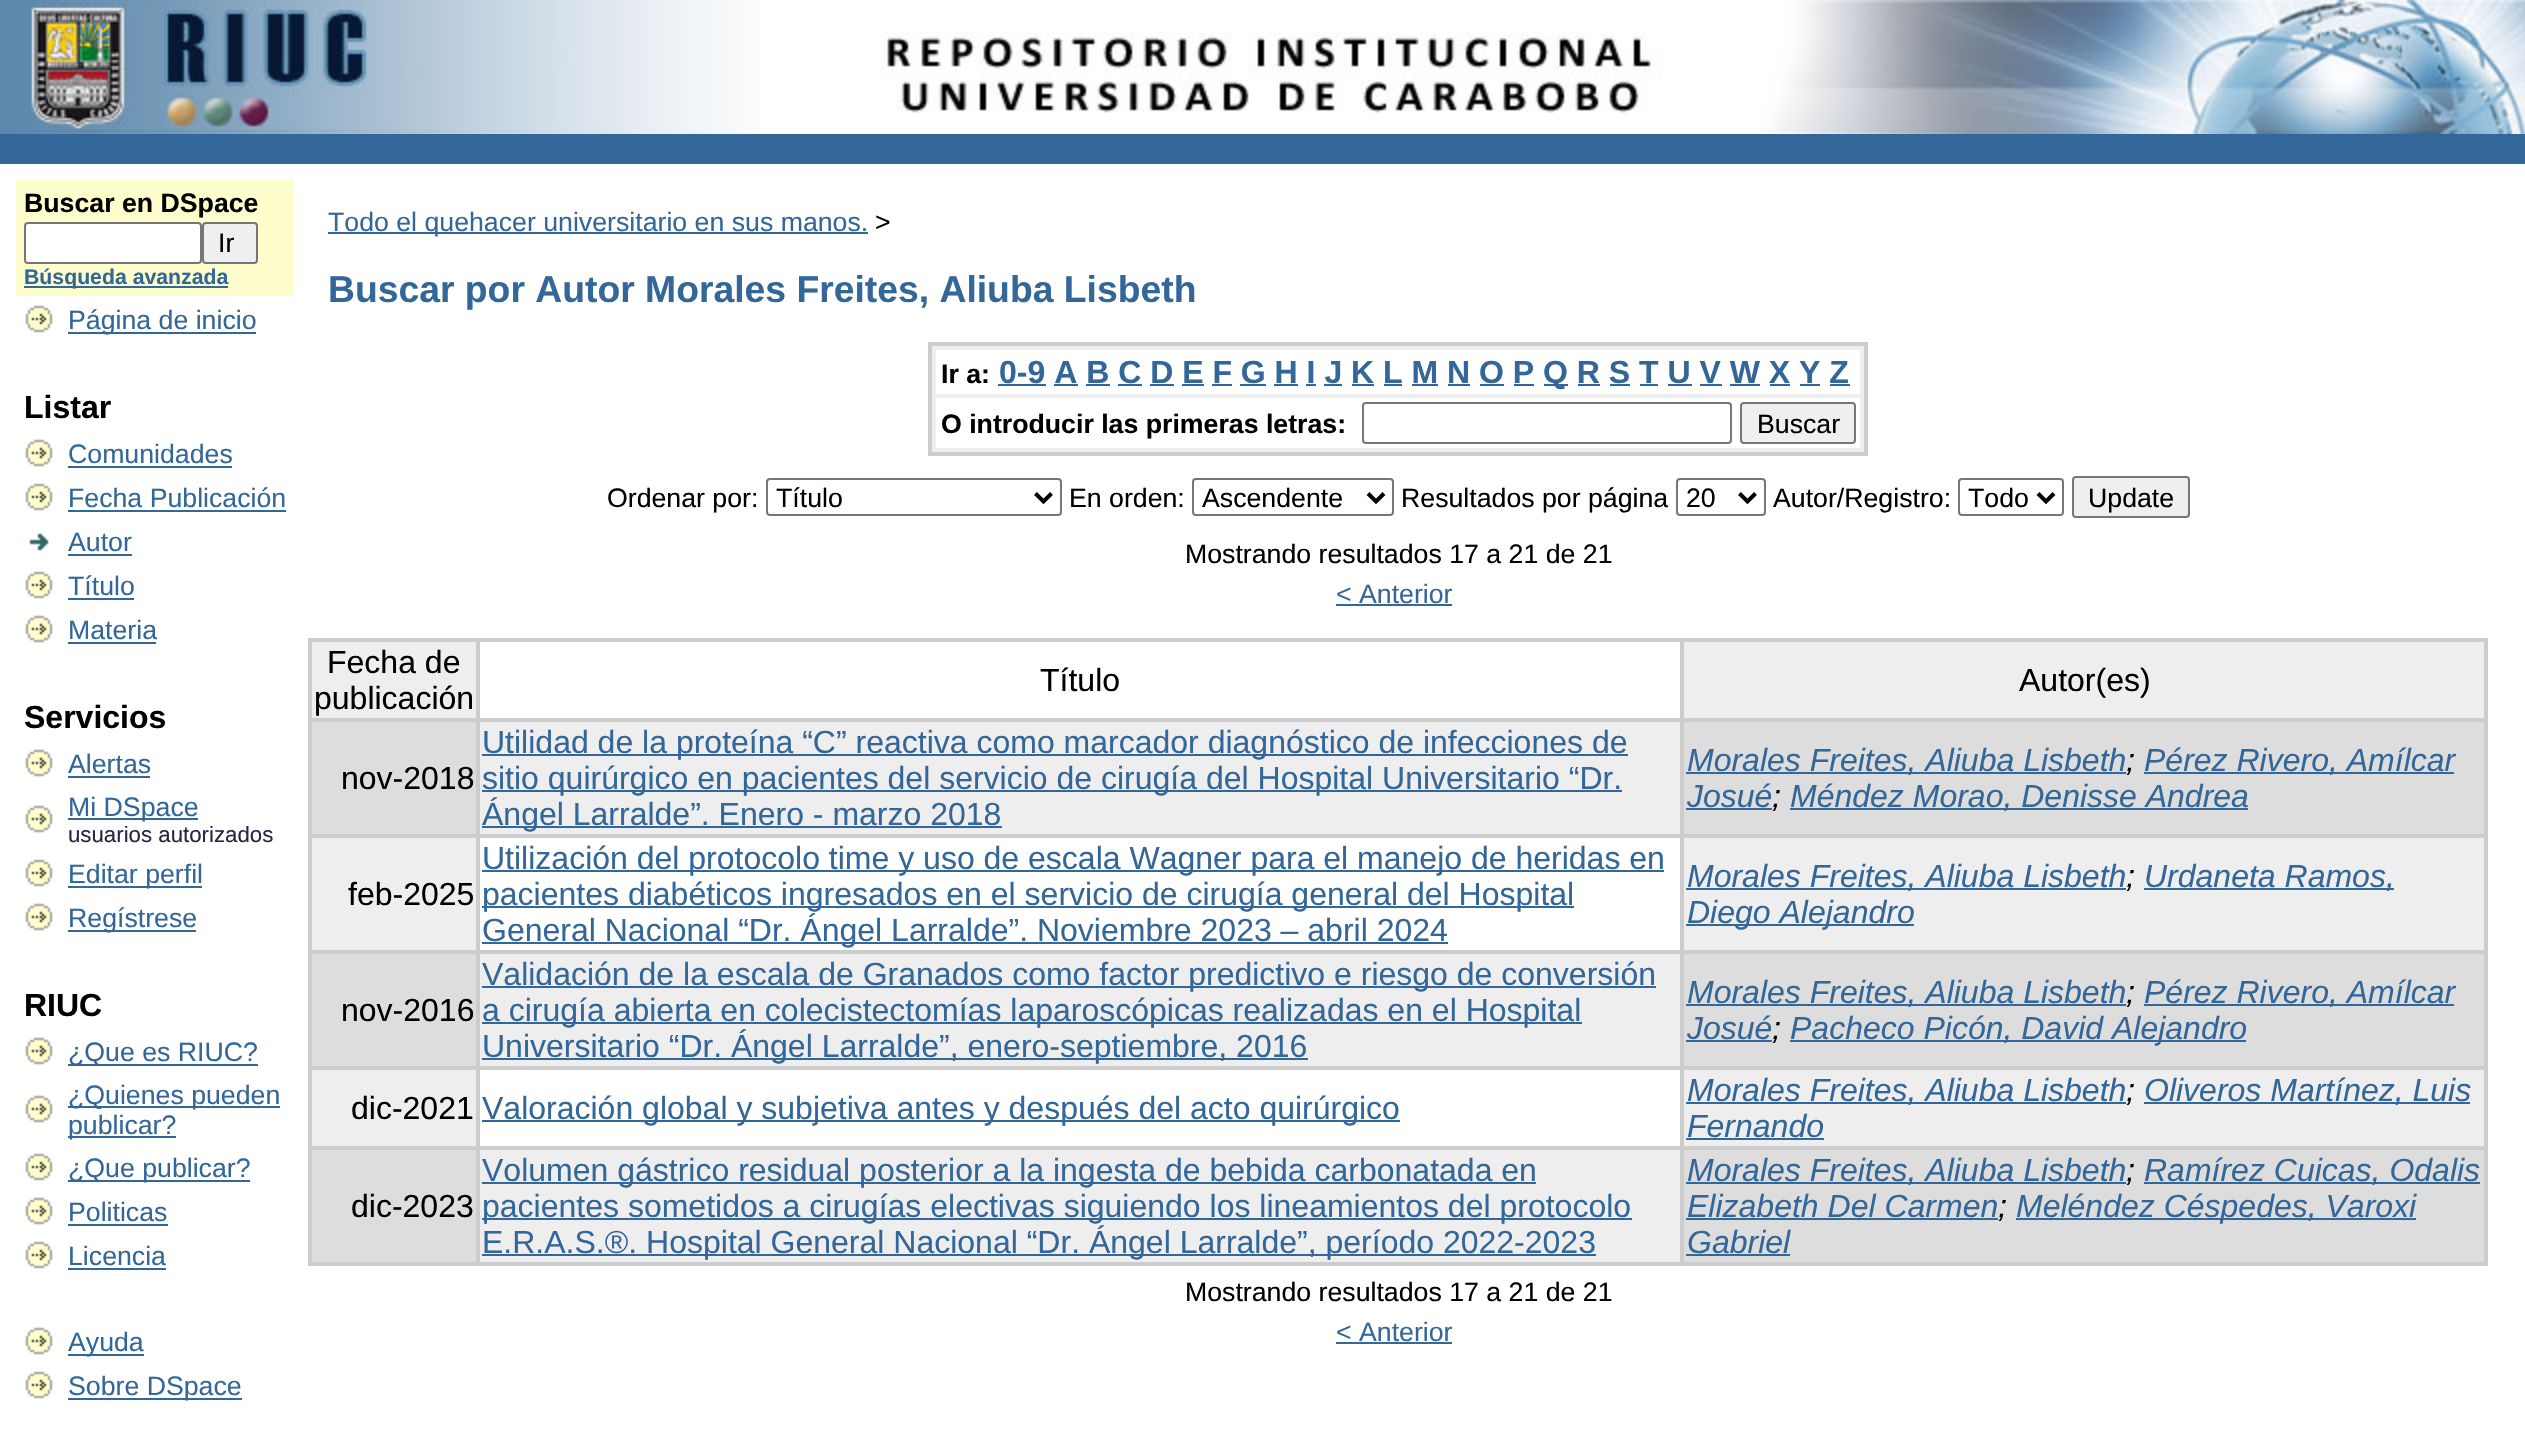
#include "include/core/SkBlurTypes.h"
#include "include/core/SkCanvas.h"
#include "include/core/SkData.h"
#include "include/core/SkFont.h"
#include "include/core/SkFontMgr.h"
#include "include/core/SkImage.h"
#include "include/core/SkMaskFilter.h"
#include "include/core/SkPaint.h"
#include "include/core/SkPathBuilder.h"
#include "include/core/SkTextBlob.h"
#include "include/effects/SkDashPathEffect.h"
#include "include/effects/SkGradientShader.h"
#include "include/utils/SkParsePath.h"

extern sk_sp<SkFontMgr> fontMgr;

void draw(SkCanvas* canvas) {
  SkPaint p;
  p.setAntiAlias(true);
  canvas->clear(SK_ColorWHITE);
  canvas->drawImageRect(SkImages::DeferredFromEncodedData(SkData::MakeFromFileName("images/1.png")), SkRect::MakeLTRB(0, 0, 759, 134), SkSamplingOptions());
  canvas->drawImageRect(SkImages::DeferredFromEncodedData(SkData::MakeFromFileName("images/2.png")), SkRect::MakeLTRB(880, 32, 1661, 113), SkSamplingOptions());
  canvas->drawImageRect(SkImages::DeferredFromEncodedData(SkData::MakeFromFileName("images/3.png")), SkRect::MakeLTRB(1759, 0, 2525, 134), SkSamplingOptions());
  p.setColor(SkColorSetRGB(51, 102, 153));
  canvas->drawRect(SkRect::MakeLTRB(0, 134, 2525, 164), p);
  p.setColor(SkColorSetRGB(254, 254, 205));
  canvas->drawRect(SkRect::MakeLTRB(16, 180, 294, 296), p);
  p.setColor(SK_ColorWHITE);
  canvas->drawRoundRect(SkRect::MakeLTRB(25, 223, 201, 263), 3, 3, p);
  p.setStyle(SkPaint::kStroke_Style);
  p.setStrokeWidth(2);
  p.setColor(SkColorSetRGB(118, 118, 118));
  canvas->drawRoundRect(SkRect::MakeLTRB(25, 223, 201, 263), 3, 3, p);
  p.setStyle(SkPaint::kFill_Style);
  p.setColor(SkColorSetRGB(239, 239, 239));
  canvas->drawRoundRect(SkRect::MakeLTRB(203, 223, 257, 263), 3, 3, p);
  p.setStyle(SkPaint::kStroke_Style);
  p.setColor(SkColorSetRGB(118, 118, 118));
  canvas->drawRoundRect(SkRect::MakeLTRB(203, 223, 257, 263), 3, 3, p);
  p.setStyle(SkPaint::kFill_Style);
  p.setColor(SkColorSetRGB(51, 102, 153));
  canvas->drawRect(SkRect::MakeLTRB(24, 286, 228, 288), p);
  canvas->drawImageRect(SkImages::DeferredFromEncodedData(SkData::MakeFromFileName("images/4.png")), SkRect::MakeLTRB(25, 305, 53, 333), SkSamplingOptions());
  canvas->drawRect(SkRect::MakeLTRB(68, 332, 256, 334), p);
  canvas->drawImageRect(SkImages::DeferredFromEncodedData(SkData::MakeFromFileName("images/4.png")), SkRect::MakeLTRB(25, 439, 53, 467), SkSamplingOptions());
  canvas->drawRect(SkRect::MakeLTRB(68, 466, 232, 468), p);
  canvas->drawImageRect(SkImages::DeferredFromEncodedData(SkData::MakeFromFileName("images/4.png")), SkRect::MakeLTRB(25, 483, 53, 511), SkSamplingOptions());
  canvas->drawRect(SkRect::MakeLTRB(68, 510, 286, 512), p);
  canvas->drawImageRect(SkImages::DeferredFromEncodedData(SkData::MakeFromFileName("images/5.png")), SkRect::MakeLTRB(29, 533, 49, 551), SkSamplingOptions());
  canvas->drawRect(SkRect::MakeLTRB(68, 554, 132, 556), p);
  canvas->drawImageRect(SkImages::DeferredFromEncodedData(SkData::MakeFromFileName("images/4.png")), SkRect::MakeLTRB(25, 571, 53, 599), SkSamplingOptions());
  canvas->drawRect(SkRect::MakeLTRB(68, 598, 134, 600), p);
  canvas->drawImageRect(SkImages::DeferredFromEncodedData(SkData::MakeFromFileName("images/4.png")), SkRect::MakeLTRB(25, 615, 53, 643), SkSamplingOptions());
  canvas->drawRect(SkRect::MakeLTRB(68, 642, 156, 644), p);
  canvas->drawImageRect(SkImages::DeferredFromEncodedData(SkData::MakeFromFileName("images/4.png")), SkRect::MakeLTRB(25, 749, 53, 777), SkSamplingOptions());
  canvas->drawRect(SkRect::MakeLTRB(68, 776, 150, 778), p);
  canvas->drawImageRect(SkImages::DeferredFromEncodedData(SkData::MakeFromFileName("images/4.png")), SkRect::MakeLTRB(25, 805, 53, 833), SkSamplingOptions());
  canvas->drawRect(SkRect::MakeLTRB(68, 818, 198, 820), p);
  canvas->drawImageRect(SkImages::DeferredFromEncodedData(SkData::MakeFromFileName("images/4.png")), SkRect::MakeLTRB(25, 859, 53, 887), SkSamplingOptions());
  canvas->drawRect(SkRect::MakeLTRB(68, 886, 202, 888), p);
  canvas->drawImageRect(SkImages::DeferredFromEncodedData(SkData::MakeFromFileName("images/4.png")), SkRect::MakeLTRB(25, 903, 53, 931), SkSamplingOptions());
  canvas->drawRect(SkRect::MakeLTRB(68, 930, 196, 932), p);
  canvas->drawImageRect(SkImages::DeferredFromEncodedData(SkData::MakeFromFileName("images/4.png")), SkRect::MakeLTRB(25, 1037, 53, 1065), SkSamplingOptions());
  canvas->drawRect(SkRect::MakeLTRB(68, 1064, 258, 1066), p);
  canvas->drawImageRect(SkImages::DeferredFromEncodedData(SkData::MakeFromFileName("images/4.png")), SkRect::MakeLTRB(25, 1095, 53, 1123), SkSamplingOptions());
  canvas->drawRect(SkRect::MakeLTRB(68, 1106, 280, 1108), p);
  canvas->drawRect(SkRect::MakeLTRB(68, 1136, 176, 1138), p);
  canvas->drawImageRect(SkImages::DeferredFromEncodedData(SkData::MakeFromFileName("images/4.png")), SkRect::MakeLTRB(25, 1153, 53, 1181), SkSamplingOptions());
  canvas->drawRect(SkRect::MakeLTRB(68, 1180, 250, 1182), p);
  canvas->drawImageRect(SkImages::DeferredFromEncodedData(SkData::MakeFromFileName("images/4.png")), SkRect::MakeLTRB(25, 1197, 53, 1225), SkSamplingOptions());
  canvas->drawRect(SkRect::MakeLTRB(68, 1224, 168, 1226), p);
  canvas->drawImageRect(SkImages::DeferredFromEncodedData(SkData::MakeFromFileName("images/4.png")), SkRect::MakeLTRB(25, 1241, 53, 1269), SkSamplingOptions());
  canvas->drawRect(SkRect::MakeLTRB(68, 1268, 166, 1270), p);
  canvas->drawImageRect(SkImages::DeferredFromEncodedData(SkData::MakeFromFileName("images/4.png")), SkRect::MakeLTRB(25, 1327, 53, 1355), SkSamplingOptions());
  canvas->drawRect(SkRect::MakeLTRB(68, 1354, 144, 1356), p);
  canvas->drawImageRect(SkImages::DeferredFromEncodedData(SkData::MakeFromFileName("images/4.png")), SkRect::MakeLTRB(25, 1371, 53, 1399), SkSamplingOptions());
  canvas->drawRect(SkRect::MakeLTRB(68, 1398, 242, 1400), p);
  canvas->drawRect(SkRect::MakeLTRB(328, 232, 868, 234), p);
  p.setColor(SkColorSetRGB(204, 204, 204));
  canvas->drawRect(SkRect::MakeLTRB(928, 342, 1868, 456), p);
  p.setColor(SkColorSetRGB(238, 238, 238));
  canvas->drawRect(SkRect::MakeLTRB(932, 346, 1864, 452), p);
  p.setColor(SK_ColorWHITE);
  canvas->drawRect(SkRect::MakeLTRB(936, 350, 1860, 394), p);
  p.setColor(SkColorSetRGB(51, 102, 153));
  canvas->drawRect(SkRect::MakeLTRB(998, 384, 1046, 386), p);
  canvas->drawRect(SkRect::MakeLTRB(1544, 384, 1568, 386), p);
  canvas->drawRect(SkRect::MakeLTRB(1054, 384, 1078, 386), p);
  canvas->drawRect(SkRect::MakeLTRB(1086, 384, 1110, 386), p);
  canvas->drawRect(SkRect::MakeLTRB(1118, 384, 1142, 386), p);
  canvas->drawRect(SkRect::MakeLTRB(1150, 384, 1174, 386), p);
  canvas->drawRect(SkRect::MakeLTRB(1182, 384, 1204, 386), p);
  canvas->drawRect(SkRect::MakeLTRB(1212, 384, 1232, 386), p);
  canvas->drawRect(SkRect::MakeLTRB(1240, 384, 1266, 386), p);
  canvas->drawRect(SkRect::MakeLTRB(1274, 384, 1298, 386), p);
  canvas->drawRect(SkRect::MakeLTRB(1306, 384, 1316, 386), p);
  canvas->drawRect(SkRect::MakeLTRB(1324, 384, 1342, 386), p);
  canvas->drawRect(SkRect::MakeLTRB(1352, 384, 1374, 386), p);
  canvas->drawRect(SkRect::MakeLTRB(1384, 384, 1402, 386), p);
  canvas->drawRect(SkRect::MakeLTRB(1412, 384, 1438, 386), p);
  canvas->drawRect(SkRect::MakeLTRB(1448, 384, 1470, 386), p);
  canvas->drawRect(SkRect::MakeLTRB(1480, 384, 1504, 386), p);
  canvas->drawRect(SkRect::MakeLTRB(1514, 384, 1534, 386), p);
  canvas->drawRect(SkRect::MakeLTRB(1578, 384, 1600, 386), p);
  canvas->drawRect(SkRect::MakeLTRB(1610, 384, 1630, 386), p);
  canvas->drawRect(SkRect::MakeLTRB(1640, 384, 1658, 386), p);
  canvas->drawRect(SkRect::MakeLTRB(1668, 384, 1692, 386), p);
  canvas->drawRect(SkRect::MakeLTRB(1700, 384, 1722, 386), p);
  canvas->drawRect(SkRect::MakeLTRB(1730, 384, 1760, 386), p);
  canvas->drawRect(SkRect::MakeLTRB(1770, 384, 1790, 386), p);
  canvas->drawRect(SkRect::MakeLTRB(1800, 384, 1820, 386), p);
  canvas->drawRect(SkRect::MakeLTRB(1830, 384, 1850, 386), p);
  p.setColor(SK_ColorWHITE);
  canvas->drawRect(SkRect::MakeLTRB(936, 398, 1860, 448), p);
  p.setStyle(SkPaint::kStroke_Style);
  p.setColor(SkColorSetRGB(118, 118, 118));
  canvas->drawRoundRect(SkRect::MakeLTRB(1363, 403, 1731, 443), 3, 3, p);
  p.setStyle(SkPaint::kFill_Style);
  p.setColor(SkColorSetRGB(239, 239, 239));
  canvas->drawRoundRect(SkRect::MakeLTRB(1741, 403, 1855, 443), 3, 3, p);
  p.setStyle(SkPaint::kStroke_Style);
  p.setColor(SkColorSetRGB(118, 118, 118));
  canvas->drawRoundRect(SkRect::MakeLTRB(1741, 403, 1855, 443), 3, 3, p);
  canvas->drawRoundRect(SkRect::MakeLTRB(767, 479, 1061, 515), 3, 3, p);
  p.setStrokeWidth(4);
  p.setColor(SK_ColorBLACK);
  canvas->drawPath(SkPathBuilder().moveTo(1035.5f, 493.5f).lineTo(1043.5f, 501.5f).lineTo(1051.5f, 493.5f).detach(), p);
  p.setStrokeWidth(2);
  p.setColor(SkColorSetRGB(118, 118, 118));
  canvas->drawRoundRect(SkRect::MakeLTRB(1193, 479, 1393, 515), 3, 3, p);
  p.setStrokeWidth(4);
  p.setColor(SK_ColorBLACK);
  canvas->drawPath(SkPathBuilder().moveTo(1368, 493.5f).lineTo(1376, 501.5f).lineTo(1384, 493.5f).detach(), p);
  p.setStrokeWidth(2);
  p.setColor(SkColorSetRGB(118, 118, 118));
  canvas->drawRoundRect(SkRect::MakeLTRB(1677, 479, 1765, 515), 3, 3, p);
  p.setStrokeWidth(4);
  p.setColor(SK_ColorBLACK);
  canvas->drawPath(SkPathBuilder().moveTo(1739.5f, 493.5f).lineTo(1747.5f, 501.5f).lineTo(1755.5f, 493.5f).detach(), p);
  p.setStrokeWidth(2);
  p.setColor(SkColorSetRGB(118, 118, 118));
  canvas->drawRoundRect(SkRect::MakeLTRB(1959, 479, 2063, 515), 3, 3, p);
  p.setStrokeWidth(4);
  p.setColor(SK_ColorBLACK);
  canvas->drawPath(SkPathBuilder().moveTo(2038, 493.5f).lineTo(2046, 501.5f).lineTo(2054, 493.5f).detach(), p);
  p.setStyle(SkPaint::kFill_Style);
  p.setColor(SkColorSetRGB(239, 239, 239));
  canvas->drawRoundRect(SkRect::MakeLTRB(2073, 477, 2189, 517), 3, 3, p);
  p.setStyle(SkPaint::kStroke_Style);
  p.setStrokeWidth(2);
  p.setColor(SkColorSetRGB(118, 118, 118));
  canvas->drawRoundRect(SkRect::MakeLTRB(2073, 477, 2189, 517), 3, 3, p);
  p.setStyle(SkPaint::kFill_Style);
  p.setColor(SkColorSetRGB(51, 102, 153));
  canvas->drawRect(SkRect::MakeLTRB(1336, 604, 1452, 606), p);
  p.setColor(SkColorSetRGB(204, 204, 204));
  canvas->drawRect(SkRect::MakeLTRB(308, 638, 2488, 1266), p);
  p.setColor(SkColorSetRGB(238, 238, 238));
  canvas->drawRect(SkRect::MakeLTRB(312, 642, 476, 718), p);
  p.setColor(SK_ColorWHITE);
  canvas->drawRect(SkRect::MakeLTRB(480, 642, 1680, 718), p);
  p.setColor(SkColorSetRGB(238, 238, 238));
  canvas->drawRect(SkRect::MakeLTRB(1684, 642, 2484, 718), p);
  p.setColor(SkColorSetRGB(221, 221, 221));
  canvas->drawRect(SkRect::MakeLTRB(312, 722, 476, 834), p);
  p.setColor(SkColorSetRGB(238, 238, 238));
  canvas->drawRect(SkRect::MakeLTRB(480, 722, 1680, 834), p);
  p.setColor(SkColorSetRGB(51, 102, 153));
  canvas->drawRect(SkRect::MakeLTRB(482, 754, 1628, 756), p);
  canvas->drawRect(SkRect::MakeLTRB(482, 790, 1622, 792), p);
  canvas->drawRect(SkRect::MakeLTRB(482, 826, 1002, 828), p);
  p.setColor(SkColorSetRGB(221, 221, 221));
  canvas->drawRect(SkRect::MakeLTRB(1684, 722, 2484, 834), p);
  p.setColor(SkColorSetRGB(51, 102, 153));
  canvas->drawRect(SkRect::MakeLTRB(1686, 772, 2126, 774), p);
  canvas->drawRect(SkRect::MakeLTRB(2144, 772, 2454, 774), p);
  canvas->drawRect(SkRect::MakeLTRB(1686, 808, 1772, 810), p);
  canvas->drawRect(SkRect::MakeLTRB(1790, 808, 2248, 810), p);
  p.setColor(SkColorSetRGB(238, 238, 238));
  canvas->drawRect(SkRect::MakeLTRB(312, 838, 476, 950), p);
  p.setColor(SK_ColorWHITE);
  canvas->drawRect(SkRect::MakeLTRB(480, 838, 1680, 950), p);
  p.setColor(SkColorSetRGB(51, 102, 153));
  canvas->drawRect(SkRect::MakeLTRB(482, 870, 1664, 872), p);
  canvas->drawRect(SkRect::MakeLTRB(482, 906, 1574, 908), p);
  canvas->drawRect(SkRect::MakeLTRB(482, 942, 1448, 944), p);
  p.setColor(SkColorSetRGB(238, 238, 238));
  canvas->drawRect(SkRect::MakeLTRB(1684, 838, 2484, 950), p);
  p.setColor(SkColorSetRGB(51, 102, 153));
  canvas->drawRect(SkRect::MakeLTRB(1686, 888, 2126, 890), p);
  canvas->drawRect(SkRect::MakeLTRB(2144, 888, 2394, 890), p);
  canvas->drawRect(SkRect::MakeLTRB(1686, 924, 1914, 926), p);
  p.setColor(SkColorSetRGB(221, 221, 221));
  canvas->drawRect(SkRect::MakeLTRB(312, 954, 476, 1066), p);
  p.setColor(SkColorSetRGB(238, 238, 238));
  canvas->drawRect(SkRect::MakeLTRB(480, 954, 1680, 1066), p);
  p.setColor(SkColorSetRGB(51, 102, 153));
  canvas->drawRect(SkRect::MakeLTRB(482, 986, 1656, 988), p);
  canvas->drawRect(SkRect::MakeLTRB(482, 1022, 1582, 1024), p);
  canvas->drawRect(SkRect::MakeLTRB(482, 1058, 1308, 1060), p);
  p.setColor(SkColorSetRGB(221, 221, 221));
  canvas->drawRect(SkRect::MakeLTRB(1684, 954, 2484, 1066), p);
  p.setColor(SkColorSetRGB(51, 102, 153));
  canvas->drawRect(SkRect::MakeLTRB(1686, 1004, 2126, 1006), p);
  canvas->drawRect(SkRect::MakeLTRB(2144, 1004, 2454, 1006), p);
  canvas->drawRect(SkRect::MakeLTRB(1686, 1040, 1772, 1042), p);
  canvas->drawRect(SkRect::MakeLTRB(1790, 1040, 2246, 1042), p);
  p.setColor(SkColorSetRGB(238, 238, 238));
  canvas->drawRect(SkRect::MakeLTRB(312, 1070, 476, 1146), p);
  p.setColor(SK_ColorWHITE);
  canvas->drawRect(SkRect::MakeLTRB(480, 1070, 1680, 1146), p);
  p.setColor(SkColorSetRGB(51, 102, 153));
  canvas->drawRect(SkRect::MakeLTRB(482, 1120, 1400, 1122), p);
  p.setColor(SkColorSetRGB(238, 238, 238));
  canvas->drawRect(SkRect::MakeLTRB(1684, 1070, 2484, 1146), p);
  p.setColor(SkColorSetRGB(51, 102, 153));
  canvas->drawRect(SkRect::MakeLTRB(1686, 1102, 2126, 1104), p);
  canvas->drawRect(SkRect::MakeLTRB(2144, 1102, 2470, 1104), p);
  canvas->drawRect(SkRect::MakeLTRB(1686, 1138, 1824, 1140), p);
  p.setColor(SkColorSetRGB(221, 221, 221));
  canvas->drawRect(SkRect::MakeLTRB(312, 1150, 476, 1262), p);
  p.setColor(SkColorSetRGB(238, 238, 238));
  canvas->drawRect(SkRect::MakeLTRB(480, 1150, 1680, 1262), p);
  p.setColor(SkColorSetRGB(51, 102, 153));
  canvas->drawRect(SkRect::MakeLTRB(482, 1182, 1536, 1184), p);
  canvas->drawRect(SkRect::MakeLTRB(482, 1218, 1632, 1220), p);
  canvas->drawRect(SkRect::MakeLTRB(482, 1254, 1596, 1256), p);
  p.setColor(SkColorSetRGB(221, 221, 221));
  canvas->drawRect(SkRect::MakeLTRB(1684, 1150, 2484, 1262), p);
  p.setColor(SkColorSetRGB(51, 102, 153));
  canvas->drawRect(SkRect::MakeLTRB(1686, 1182, 2126, 1184), p);
  canvas->drawRect(SkRect::MakeLTRB(2144, 1182, 2480, 1184), p);
  canvas->drawRect(SkRect::MakeLTRB(1686, 1218, 1998, 1220), p);
  canvas->drawRect(SkRect::MakeLTRB(2016, 1218, 2416, 1220), p);
  canvas->drawRect(SkRect::MakeLTRB(1686, 1254, 1790, 1256), p);
  canvas->drawRect(SkRect::MakeLTRB(1336, 1342, 1452, 1344), p);
  SkFont font1(fontMgr->matchFamilyStyle("Liberation Sans", SkFontStyle::Bold()), 26.7f);
  font1.setSubpixel(true);
  p.setColor(SK_ColorBLACK);
  canvas->drawString("Buscar en DSpace", 24, 212, font1, p);
  SkFont font2(fontMgr->matchFamilyStyle("Liberation Sans", SkFontStyle::Normal()), 26.7f);
  font2.setSubpixel(true);
  canvas->drawString("Ir", 218, 252, font2, p);
  SkFont font3(fontMgr->matchFamilyStyle("Liberation Sans", SkFontStyle::Bold()), 21.25f);
  font3.setSubpixel(true);
  p.setColor(SkColorSetRGB(51, 102, 153));
  canvas->drawString("Búsqueda avanzada", 24, 284, font3, p);
  canvas->drawString("Página de inicio", 68, 329, font2, p);
  SkFont font4(fontMgr->matchFamilyStyle("Liberation Sans", SkFontStyle::Bold()), 32);
  font4.setSubpixel(true);
  p.setColor(SK_ColorBLACK);
  canvas->drawString("Listar", 24, 418, font4, p);
  p.setColor(SkColorSetRGB(51, 102, 153));
  canvas->drawString("Comunidades", 68, 463, font2, p);
  canvas->drawString("Fecha Publicación", 68, 507, font2, p);
  canvas->drawString("Autor", 68, 551, font2, p);
  canvas->drawString("Título", 68, 595, font2, p);
  canvas->drawString("Materia", 68, 639, font2, p);
  p.setColor(SK_ColorBLACK);
  canvas->drawString("Servicios", 24, 728, font4, p);
  p.setColor(SkColorSetRGB(51, 102, 153));
  canvas->drawString("Alertas", 68, 773, font2, p);
  canvas->drawString("Mi DSpace", 68, 816, font2, p);
  SkFont font5(fontMgr->matchFamilyStyle("Liberation Sans", SkFontStyle::Normal()), 22.25f);
  font5.setSubpixel(true);
  p.setColor(SkColorSetRGB(37, 38, 69));
  canvas->drawString("usuarios autorizados", 68, 842, font5, p);
  p.setColor(SkColorSetRGB(51, 102, 153));
  canvas->drawString("Editar perfil", 68, 883, font2, p);
  canvas->drawString("Regístrese", 68, 927, font2, p);
  p.setColor(SK_ColorBLACK);
  canvas->drawString("RIUC", 24, 1016, font4, p);
  p.setColor(SkColorSetRGB(51, 102, 153));
  canvas->drawString("¿Que es RIUC?", 68, 1061, font2, p);
  canvas->drawString("¿Quienes pueden", 68, 1104, font2, p);
  canvas->drawString("publicar?", 68, 1134, font2, p);
  canvas->drawString("¿Que publicar?", 68, 1177, font2, p);
  canvas->drawString("Politicas", 68, 1221, font2, p);
  canvas->drawString("Licencia", 68, 1265, font2, p);
  canvas->drawString("Ayuda", 68, 1351, font2, p);
  canvas->drawString("Sobre DSpace", 68, 1395, font2, p);
  canvas->drawString("Todo el quehacer universitario en sus manos.", 328, 231, font2, p);
  p.setColor(SK_ColorBLACK);
  canvas->drawString(">", 875, 231, font2, p);
  SkFont font6(fontMgr->matchFamilyStyle("Liberation Sans", SkFontStyle::Bold()), 37.3f);
  font6.setSubpixel(true);
  p.setColor(SkColorSetRGB(51, 102, 153));
  canvas->drawString("Buscar por Autor Morales Freites, Aliuba Lisbeth", 328, 302, font6, p);
  p.setColor(SK_ColorBLACK);
  canvas->drawString("Ir a:", 941, 383, font1, p);
  p.setColor(SkColorSetRGB(51, 102, 153));
  canvas->drawString("0-9 A B C D E F G H I J K L M N O P", 999, 383, font4, p);
  canvas->drawString("Q R S T U V W X Y Z", 1543, 383, font4, p);
  p.setColor(SK_ColorBLACK);
  canvas->drawString("O introducir las primeras letras:", 941, 433, font1, p);
  canvas->drawString("Buscar", 1757, 433, font2, p);
  canvas->drawString("Ordenar por:", 607, 507, font2, p);
  canvas->drawString("Título", 776, 507, font2, p);
  canvas->drawString("En orden:", 1069, 507, font2, p);
  canvas->drawString("Ascendente", 1202, 507, font2, p);
  canvas->drawString("Resultados por página", 1401, 507, font2, p);
  canvas->drawString("20", 1686, 507, font2, p);
  canvas->drawString("Autor/Registro:", 1773, 507, font2, p);
  canvas->drawString("Todo", 1968, 507, font2, p);
  canvas->drawString("Update", 2088, 507, font2, p);
  canvas->drawString("Mostrando resultados 17 a 21 de 21", 1185, 563, font2, p);
  p.setColor(SkColorSetRGB(51, 102, 153));
  canvas->drawString("< Anterior", 1336, 603, font2, p);
  SkFont font7(fontMgr->matchFamilyStyle("Liberation Sans", SkFontStyle::Normal()), 32);
  font7.setSubpixel(true);
  p.setColor(SK_ColorBLACK);
  canvas->drawString("Fecha de", 327, 673, font7, p);
  canvas->drawString("publicación", 314, 709, font7, p);
  canvas->drawString("Título", 1040, 691, font7, p);
  canvas->drawString("Autor(es)", 2019, 691, font7, p);
  canvas->drawString("nov-2018", 341, 789, font7, p);
  p.setColor(SkColorSetRGB(51, 102, 153));
  canvas->drawString("Utilidad de la proteína “C” reactiva como marcador diagnóstico de infecciones de", 482, 753, font7, p);
  canvas->drawString("sitio quirúrgico en pacientes del servicio de cirugía del Hospital Universitario “Dr.", 482, 789, font7, p);
  canvas->drawString("Ángel Larralde”. Enero - marzo 2018", 482, 825, font7, p);
  SkFont font8(fontMgr->matchFamilyStyle("Liberation Sans", SkFontStyle::Italic()), 32);
  font8.setSubpixel(true);
  canvas->drawString("Morales Freites, Aliuba Lisbeth", 1687, 771, font8, p);
  p.setColor(SK_ColorBLACK);
  canvas->drawString(";", 2126, 771, font8, p);
  p.setColor(SkColorSetRGB(51, 102, 153));
  canvas->drawString("Pérez Rivero, Amílcar", 2144, 771, font8, p);
  canvas->drawString("Josué", 1687, 807, font8, p);
  p.setColor(SK_ColorBLACK);
  canvas->drawString(";", 1772, 807, font8, p);
  p.setColor(SkColorSetRGB(51, 102, 153));
  canvas->drawString("Méndez Morao, Denisse Andrea", 1790, 807, font8, p);
  p.setColor(SK_ColorBLACK);
  canvas->drawString("feb-2025", 348, 905, font7, p);
  p.setColor(SkColorSetRGB(51, 102, 153));
  canvas->drawString("Utilización del protocolo time y uso de escala Wagner para el manejo de heridas en", 482, 869, font7, p);
  canvas->drawString("pacientes diabéticos ingresados en el servicio de cirugía general del Hospital", 482, 905, font7, p);
  canvas->drawString("General Nacional “Dr. Ángel Larralde”. Noviembre 2023 – abril 2024", 482, 941, font7, p);
  canvas->drawString("Morales Freites, Aliuba Lisbeth", 1687, 887, font8, p);
  p.setColor(SK_ColorBLACK);
  canvas->drawString(";", 2126, 887, font8, p);
  p.setColor(SkColorSetRGB(51, 102, 153));
  canvas->drawString("Urdaneta Ramos,", 2144, 887, font8, p);
  canvas->drawString("Diego Alejandro", 1687, 923, font8, p);
  p.setColor(SK_ColorBLACK);
  canvas->drawString("nov-2016", 341, 1021, font7, p);
  p.setColor(SkColorSetRGB(51, 102, 153));
  canvas->drawString("Validación de la escala de Granados como factor predictivo e riesgo de conversión", 482, 985, font7, p);
  canvas->drawString("a cirugía abierta en colecistectomías laparoscópicas realizadas en el Hospital", 482, 1021, font7, p);
  canvas->drawString("Universitario “Dr. Ángel Larralde”, enero-septiembre, 2016", 482, 1057, font7, p);
  canvas->drawString("Morales Freites, Aliuba Lisbeth", 1687, 1003, font8, p);
  p.setColor(SK_ColorBLACK);
  canvas->drawString(";", 2126, 1003, font8, p);
  p.setColor(SkColorSetRGB(51, 102, 153));
  canvas->drawString("Pérez Rivero, Amílcar", 2144, 1003, font8, p);
  canvas->drawString("Josué", 1687, 1039, font8, p);
  p.setColor(SK_ColorBLACK);
  canvas->drawString(";", 1772, 1039, font8, p);
  p.setColor(SkColorSetRGB(51, 102, 153));
  canvas->drawString("Pacheco Picón, David Alejandro", 1790, 1039, font8, p);
  p.setColor(SK_ColorBLACK);
  canvas->drawString("dic-2021", 351, 1119, font7, p);
  p.setColor(SkColorSetRGB(51, 102, 153));
  canvas->drawString("Valoración global y subjetiva antes y después del acto quirúrgico", 482, 1119, font7, p);
  canvas->drawString("Morales Freites, Aliuba Lisbeth", 1687, 1101, font8, p);
  p.setColor(SK_ColorBLACK);
  canvas->drawString(";", 2126, 1101, font8, p);
  p.setColor(SkColorSetRGB(51, 102, 153));
  canvas->drawString("Oliveros Martínez, Luis", 2144, 1101, font8, p);
  canvas->drawString("Fernando", 1687, 1137, font8, p);
  p.setColor(SK_ColorBLACK);
  canvas->drawString("dic-2023", 351, 1217, font7, p);
  p.setColor(SkColorSetRGB(51, 102, 153));
  canvas->drawString("Volumen gástrico residual posterior a la ingesta de bebida carbonatada en", 482, 1181, font7, p);
  canvas->drawString("pacientes sometidos a cirugías electivas siguiendo los lineamientos del protocolo", 482, 1217, font7, p);
  canvas->drawString("E.R.A.S.®. Hospital General Nacional “Dr. Ángel Larralde”, período 2022-2023", 482, 1253, font7, p);
  canvas->drawString("Morales Freites, Aliuba Lisbeth", 1687, 1181, font8, p);
  p.setColor(SK_ColorBLACK);
  canvas->drawString(";", 2126, 1181, font8, p);
  p.setColor(SkColorSetRGB(51, 102, 153));
  canvas->drawString("Ramírez Cuicas, Odalis", 2144, 1181, font8, p);
  canvas->drawString("Elizabeth Del Carmen", 1687, 1217, font8, p);
  p.setColor(SK_ColorBLACK);
  canvas->drawString(";", 1998, 1217, font8, p);
  p.setColor(SkColorSetRGB(51, 102, 153));
  canvas->drawString("Meléndez Céspedes, Varoxi", 2016, 1217, font8, p);
  canvas->drawString("Gabriel", 1687, 1253, font8, p);
  p.setColor(SK_ColorBLACK);
  canvas->drawString("Mostrando resultados 17 a 21 de 21", 1185, 1301, font2, p);
  p.setColor(SkColorSetRGB(51, 102, 153));
  canvas->drawString("< Anterior", 1336, 1341, font2, p);
}
